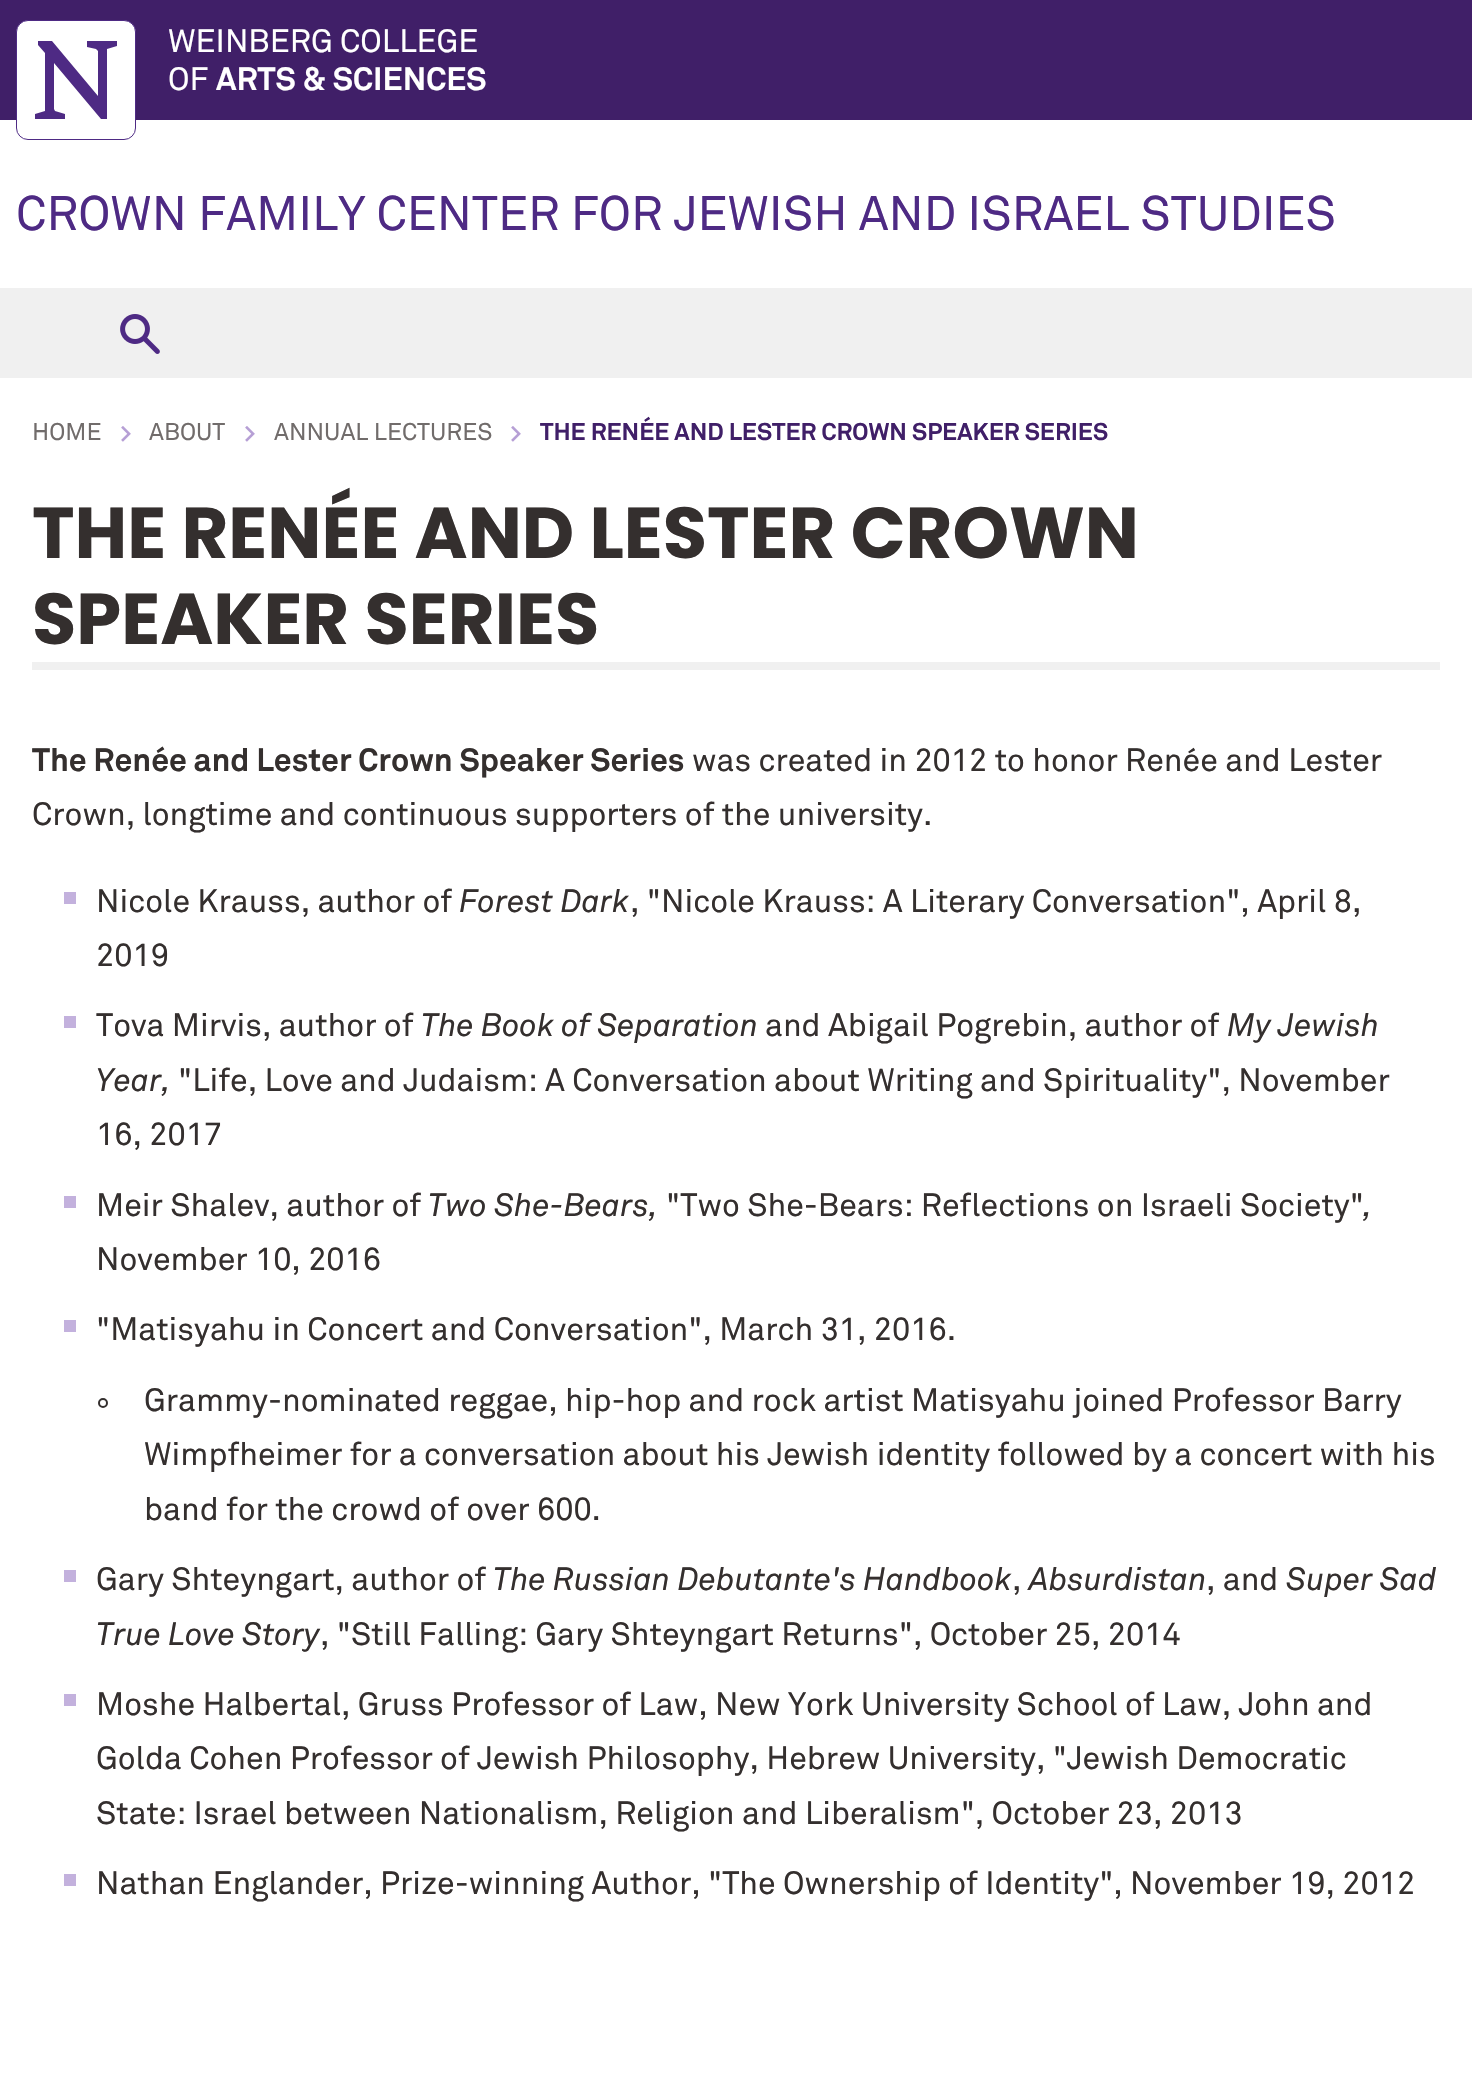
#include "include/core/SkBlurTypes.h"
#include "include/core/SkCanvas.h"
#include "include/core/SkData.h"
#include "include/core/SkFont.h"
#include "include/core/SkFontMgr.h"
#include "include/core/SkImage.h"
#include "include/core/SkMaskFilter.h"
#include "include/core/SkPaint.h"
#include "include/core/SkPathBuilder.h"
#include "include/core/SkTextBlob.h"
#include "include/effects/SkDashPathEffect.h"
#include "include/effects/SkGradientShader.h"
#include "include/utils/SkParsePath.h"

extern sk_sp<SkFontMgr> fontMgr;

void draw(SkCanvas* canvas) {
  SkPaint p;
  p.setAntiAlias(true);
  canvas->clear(SK_ColorWHITE);
  p.setColor(SkColorSetRGB(64, 31, 104));
  canvas->drawRect(SkRect::MakeLTRB(0, 0, 1472, 120), p);
  p.setColor(SK_ColorWHITE);
  canvas->drawRoundRect(SkRect::MakeLTRB(16.5f, 20.5f, 135.5f, 139.5f), 11.5f, 11.5f, p);
  p.setStyle(SkPaint::kStroke_Style);
  p.setStrokeWidth(1);
  p.setColor(SkColorSetRGB(78, 42, 132));
  canvas->drawRoundRect(SkRect::MakeLTRB(16.5f, 20.5f, 135.5f, 139.5f), 11.5f, 11.5f, p);
  p.setStyle(SkPaint::kFill_Style);
  canvas->drawPath(SkPathBuilder().moveTo(87, 41).lineTo(87, 47).lineTo(96, 49).lineTo(98, 51).lineTo(98, 96).lineTo(52, 41).lineTo(38, 41).lineTo(38, 45).lineTo(45, 53).lineTo(45, 111).lineTo(35, 114).lineTo(35, 119).lineTo(65, 119).lineTo(65, 114).lineTo(55, 111).lineTo(54, 109).lineTo(54, 63).lineTo(101, 119).lineTo(107, 119).lineTo(107, 49).lineTo(117, 46).lineTo(117, 41).close().detach(), p);
  p.setColor(SkColorSetRGB(240, 240, 240));
  canvas->drawRect(SkRect::MakeLTRB(0, 288, 1472, 378), p);
  canvas->drawImageRect(SkImages::DeferredFromEncodedData(SkData::MakeFromFileName("images/1.png")), SkRect::MakeLTRB(120, 314, 160, 354), SkSamplingOptions());
  canvas->drawImageRect(SkImages::DeferredFromEncodedData(SkData::MakeFromFileName("images/2.png")), SkRect::MakeLTRB(121, 426, 131, 442), SkSamplingOptions());
  canvas->drawImageRect(SkImages::DeferredFromEncodedData(SkData::MakeFromFileName("images/2.png")), SkRect::MakeLTRB(245, 426, 255, 442), SkSamplingOptions());
  canvas->drawImageRect(SkImages::DeferredFromEncodedData(SkData::MakeFromFileName("images/2.png")), SkRect::MakeLTRB(511, 426, 521, 442), SkSamplingOptions());
  canvas->drawRect(SkRect::MakeLTRB(32, 662, 1440, 670), p);
  p.setColor(SkColorSetRGB(195, 177, 221));
  canvas->drawRect(SkRect::MakeLTRB(64, 892, 76, 904), p);
  canvas->drawRect(SkRect::MakeLTRB(64, 1016, 76, 1028), p);
  canvas->drawRect(SkRect::MakeLTRB(64, 1196, 76, 1208), p);
  canvas->drawRect(SkRect::MakeLTRB(64, 1320, 76, 1332), p);
  p.setStyle(SkPaint::kStroke_Style);
  p.setStrokeWidth(2);
  p.setColor(SkColorSetRGB(52, 47, 46));
  canvas->drawCircle(103, 1403, 4, p);
  p.setStyle(SkPaint::kFill_Style);
  p.setColor(SkColorSetRGB(195, 177, 221));
  canvas->drawRect(SkRect::MakeLTRB(64, 1570, 76, 1582), p);
  canvas->drawRect(SkRect::MakeLTRB(64, 1694, 76, 1706), p);
  canvas->drawRect(SkRect::MakeLTRB(64, 1874, 76, 1886), p);
  SkFont font1(fontMgr->matchFamilyStyle("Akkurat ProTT", SkFontStyle::Normal()), 32);
  font1.setSubpixel(true);
  p.setColor(SK_ColorWHITE);
  canvas->drawString("WEINBERG COLLEGE", 168, 52, font1, p);
  canvas->drawString("OF", 168, 90, font1, p);
  SkFont font2(fontMgr->matchFamilyStyle("Akkurat ProTT", SkFontStyle::Bold()), 32);
  font2.setSubpixel(true);
  canvas->drawString("ARTS & SCIENCES", 216, 90, font2, p);
  SkFont font3(fontMgr->matchFamilyStyle("Akkurat ProTT", SkFontStyle::Normal()), 48);
  font3.setSubpixel(true);
  p.setColor(SkColorSetRGB(78, 42, 132));
  canvas->drawString("CROWN FAMILY CENTER FOR JEWISH AND ISRAEL STUDIES", 16, 230, font3, p);
  SkFont font4(fontMgr->matchFamilyStyle("Akkurat ProTT", SkFontStyle::Normal()), 24);
  font4.setSubpixel(true);
  p.setColor(SkColorSetRGB(113, 108, 107));
  canvas->drawString("HOME", 32, 440, font4, p);
  canvas->drawString("ABOUT", 149, 440, font4, p);
  canvas->drawString("ANNUAL LECTURES", 274, 440, font4, p);
  SkFont font5(fontMgr->matchFamilyStyle("Akkurat ProTT", SkFontStyle::Bold()), 24);
  font5.setSubpixel(true);
  p.setColor(SkColorSetRGB(64, 31, 104));
  canvas->drawString("THE RENÉE AND LESTER CROWN SPEAKER SERIES", 540, 440, font5, p);
  SkFont font6(fontMgr->matchFamilyStyle("Poppins", SkFontStyle::Bold()), 72);
  font6.setSubpixel(true);
  p.setColor(SkColorSetRGB(52, 47, 46));
  canvas->drawString("THE RENÉE AND LESTER CROWN", 32, 558, font6, p);
  canvas->drawString("SPEAKER SERIES", 32, 644, font6, p);
  canvas->drawString("The Renée and Lester Crown Speaker Series", 32, 771, font2, p);
  canvas->drawString("was created in 2012 to honor Renée and Lester", 692, 771, font1, p);
  canvas->drawString("Crown, longtime and continuous supporters of the university.", 32, 825, font1, p);
  canvas->drawString("Nicole Krauss, author of", 96, 912, font1, p);
  SkFont font7(fontMgr->matchFamilyStyle("Akkurat ProTT", SkFontStyle::Italic()), 32);
  font7.setSubpixel(true);
  canvas->drawString("Forest Dark", 459, 912, font7, p);
  canvas->drawString(", \"Nicole Krauss: A Literary Conversation\", April 8,", 630, 912, font1, p);
  canvas->drawString("2019", 96, 966, font1, p);
  canvas->drawString("Tova Mirvis, author of", 96, 1036, font1, p);
  canvas->drawString("The Book of Separation", 421, 1036, font7, p);
  canvas->drawString("and Abigail Pogrebin, author of", 765, 1036, font1, p);
  canvas->drawString("My Jewish", 1227, 1036, font7, p);
  canvas->drawString("Year,", 96, 1091, font7, p);
  canvas->drawString("\"Life, Love and Judaism: A Conversation about Writing and Spirituality\", November", 178, 1091, font1, p);
  canvas->drawString("16, 2017", 96, 1145, font1, p);
  canvas->drawString("Meir Shalev, author of", 96, 1216, font1, p);
  canvas->drawString("Two She-Bears,", 428, 1216, font7, p);
  canvas->drawString("\"Two She-Bears: Reflections on Israeli Society\"", 666, 1216, font1, p);
  canvas->drawString(",", 1363, 1216, font7, p);
  canvas->drawString("November 10, 2016", 96, 1270, font1, p);
  canvas->drawString("\"Matisyahu in Concert and Conversation\", March 31, 2016.", 96, 1340, font1, p);
  canvas->drawString("Grammy-nominated reggae, hip-hop and rock artist Matisyahu joined Professor Barry", 144, 1411, font1, p);
  canvas->drawString("Wimpfheimer for a conversation about his Jewish identity followed by a concert with his", 144, 1465, font1, p);
  canvas->drawString("band for the crowd of over 600.", 144, 1520, font1, p);
  canvas->drawString("Gary Shteyngart, author of", 96, 1590, font1, p);
  canvas->drawString("The Russian Debutante's Handbook", 493, 1590, font7, p);
  canvas->drawString(",", 1012, 1590, font1, p);
  canvas->drawString("Absurdistan", 1029, 1590, font7, p);
  canvas->drawString(", and", 1206, 1590, font1, p);
  canvas->drawString("Super Sad", 1286, 1590, font7, p);
  canvas->drawString("True Love Story", 96, 1645, font7, p);
  canvas->drawString(", \"Still Falling: Gary Shteyngart Returns\", October 25, 2014", 320, 1645, font1, p);
  canvas->drawString("Moshe Halbertal, Gruss Professor of Law, New York University School of Law, John and", 96, 1715, font1, p);
  canvas->drawString("Golda Cohen Professor of Jewish Philosophy, Hebrew University, \"Jewish Democratic", 96, 1769, font1, p);
  canvas->drawString("State: Israel between Nationalism, Religion and Liberalism\", October 23, 2013", 96, 1824, font1, p);
  canvas->drawString("Nathan Englander, Prize-winning Author, \"The Ownership of Identity\", November 19, 2012", 96, 1894, font1, p);
}
